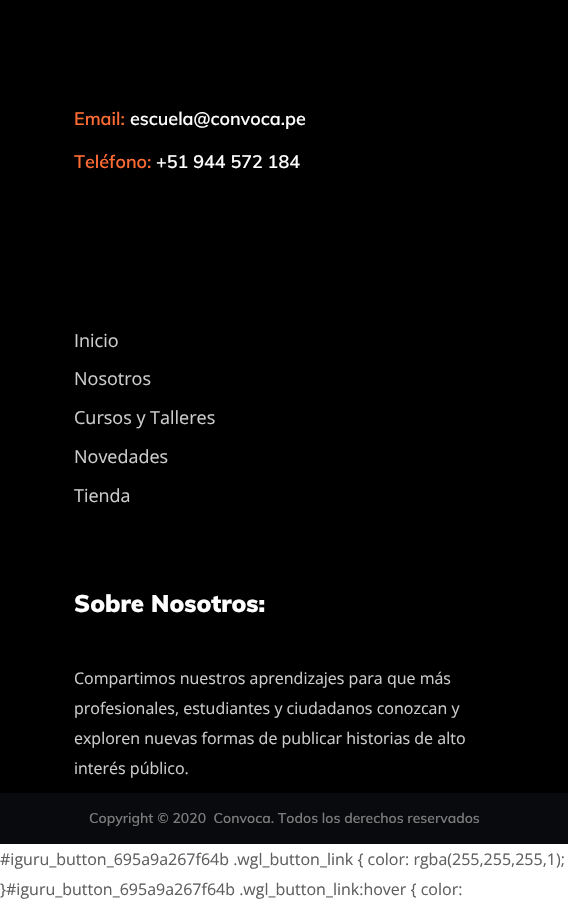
#include "include/core/SkBlurTypes.h"
#include "include/core/SkCanvas.h"
#include "include/core/SkData.h"
#include "include/core/SkFont.h"
#include "include/core/SkFontMgr.h"
#include "include/core/SkImage.h"
#include "include/core/SkMaskFilter.h"
#include "include/core/SkPaint.h"
#include "include/core/SkPathBuilder.h"
#include "include/core/SkTextBlob.h"
#include "include/effects/SkDashPathEffect.h"
#include "include/effects/SkGradientShader.h"
#include "include/utils/SkParsePath.h"

extern sk_sp<SkFontMgr> fontMgr;

void draw(SkCanvas* canvas) {
  SkPaint p;
  p.setAntiAlias(true);
  canvas->clear(SK_ColorWHITE);
  p.setColor(SK_ColorBLACK);
  canvas->drawRect(SkRect::MakeLTRB(0, 0, 568, 793), p);
  p.setColor(SkColorSetRGB(9, 10, 14));
  canvas->drawRect(SkRect::MakeLTRB(0, 793, 568, 844), p);
  SkFont font1(fontMgr->matchFamilyStyle("Muli", SkFontStyle(600, SkFontStyle::kNormal_Width, SkFontStyle::kUpright_Slant)), 18);
  font1.setSubpixel(true);
  p.setColor(SkColorSetRGB(255, 109, 52));
  canvas->drawString("Email:", 74, 125, font1, p);
  p.setColor(SK_ColorWHITE);
  canvas->drawString("escuela@convoca.pe", 130, 125, font1, p);
  p.setColor(SkColorSetRGB(255, 109, 52));
  canvas->drawString("Teléfono:", 74, 168, font1, p);
  p.setColor(SK_ColorWHITE);
  canvas->drawString("+51 944 572 184", 156, 168, font1, p);
  SkFont font2(fontMgr->matchFamilyStyle("Open Sans", SkFontStyle::Normal()), 18);
  font2.setSubpixel(true);
  p.setColor(SkColorSetRGB(205, 205, 205));
  canvas->drawString("Inicio", 74, 347, font2, p);
  canvas->drawString("Nosotros", 74, 385, font2, p);
  canvas->drawString("Cursos y Talleres", 74, 424, font2, p);
  canvas->drawString("Novedades", 74, 463, font2, p);
  canvas->drawString("Tienda", 74, 502, font2, p);
  SkFont font3(fontMgr->matchFamilyStyle("Muli", SkFontStyle(900, SkFontStyle::kNormal_Width, SkFontStyle::kUpright_Slant)), 24);
  font3.setSubpixel(true);
  p.setColor(SK_ColorWHITE);
  canvas->drawString("Sobre Nosotros:", 74, 612, font3, p);
  SkFont font4(fontMgr->matchFamilyStyle("Open Sans", SkFontStyle::Normal()), 16);
  font4.setSubpixel(true);
  p.setColor(SkColorSetRGB(205, 205, 205));
  canvas->drawString("Compartimos nuestros aprendizajes para que más", 74, 684, font4, p);
  canvas->drawString("profesionales, estudiantes y ciudadanos conozcan y", 74, 714, font4, p);
  canvas->drawString("exploren nuevas formas de publicar historias de alto", 74, 744, font4, p);
  canvas->drawString("interés público.", 74, 774, font4, p);
  SkFont font5(fontMgr->matchFamilyStyle("Muli", SkFontStyle(600, SkFontStyle::kNormal_Width, SkFontStyle::kUpright_Slant)), 14);
  font5.setSubpixel(true);
  p.setColor(SkColorSetRGB(123, 123, 123));
  canvas->drawString("Copyright © 2020  Convoca. Todos los derechos reservados", 89, 823, font5, p);
  p.setColor(SkColorSetRGB(95, 95, 95));
  canvas->drawString("#iguru_button_695a9a267f64b .wgl_button_link { color: rgba(255,255,255,1);", 0, 865, font4, p);
  canvas->drawString("}#iguru_button_695a9a267f64b .wgl_button_link:hover { color:", 0, 895, font4, p);
}
